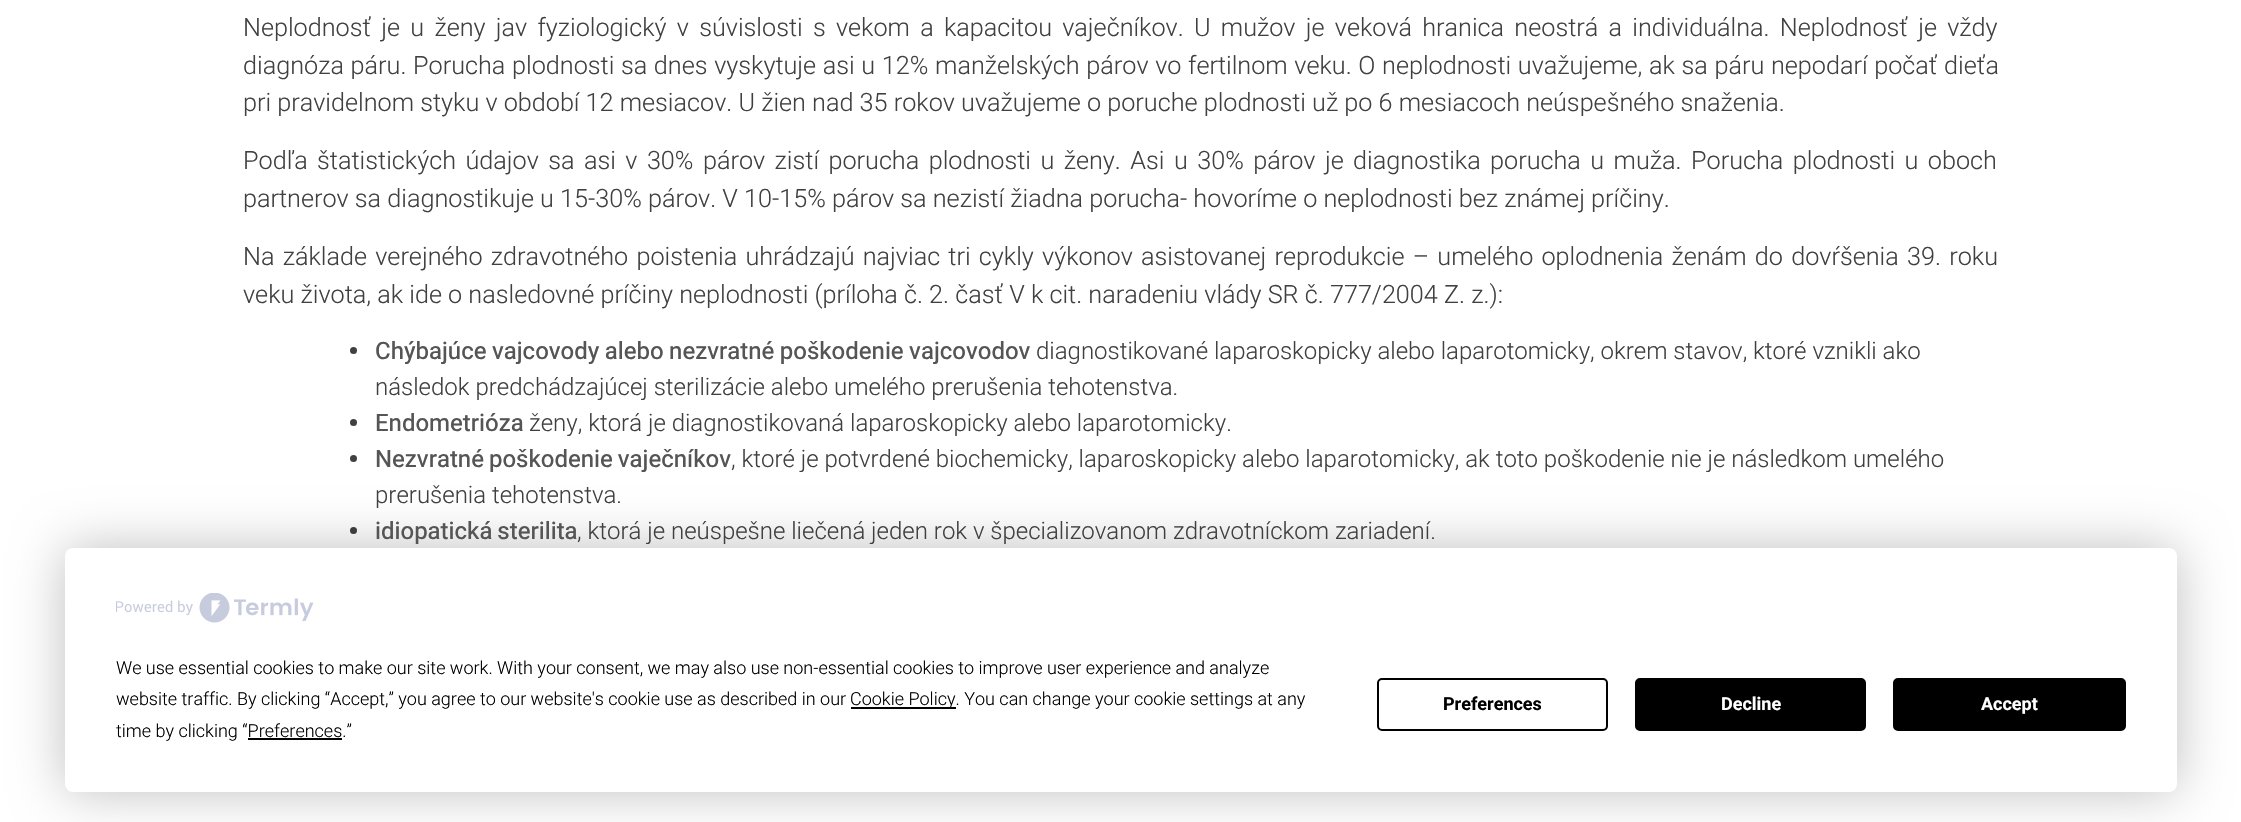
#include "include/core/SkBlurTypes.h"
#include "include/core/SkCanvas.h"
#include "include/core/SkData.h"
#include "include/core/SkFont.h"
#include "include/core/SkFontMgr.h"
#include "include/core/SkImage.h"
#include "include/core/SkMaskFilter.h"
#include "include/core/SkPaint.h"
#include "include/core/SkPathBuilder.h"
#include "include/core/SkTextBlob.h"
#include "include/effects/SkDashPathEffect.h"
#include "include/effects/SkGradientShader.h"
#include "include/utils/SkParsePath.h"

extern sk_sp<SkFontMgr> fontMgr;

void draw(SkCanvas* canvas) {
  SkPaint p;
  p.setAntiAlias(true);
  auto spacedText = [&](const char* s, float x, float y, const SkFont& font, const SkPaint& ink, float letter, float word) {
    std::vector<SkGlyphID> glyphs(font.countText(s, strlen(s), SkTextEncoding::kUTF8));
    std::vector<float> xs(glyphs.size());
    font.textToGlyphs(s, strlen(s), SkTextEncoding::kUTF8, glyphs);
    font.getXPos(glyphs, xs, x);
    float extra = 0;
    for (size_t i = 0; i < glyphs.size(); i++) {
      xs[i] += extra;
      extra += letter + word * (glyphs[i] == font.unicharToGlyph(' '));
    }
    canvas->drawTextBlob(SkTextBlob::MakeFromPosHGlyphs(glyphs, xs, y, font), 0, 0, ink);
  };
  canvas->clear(SK_ColorWHITE);
  p.setColor(SkColorSetRGB(64, 64, 64));
  canvas->drawCircle(353.5f, 350.5f, 3.5f, p);
  canvas->drawCircle(353.5f, 422.5f, 3.5f, p);
  canvas->drawCircle(353.5f, 458.5f, 3.5f, p);
  canvas->drawCircle(353.5f, 530.5f, 3.5f, p);
  p.setColor(SkColorSetARGB(64, 0, 0, 0));
  p.setMaskFilter(SkMaskFilter::MakeBlur(kNormal_SkBlurStyle, 26));
  canvas->drawRoundRect(SkRect::MakeLTRB(65, 548, 2177, 792), 8, 8, p);
  p.setMaskFilter(nullptr);
  p.setColor(SK_ColorWHITE);
  canvas->drawRoundRect(SkRect::MakeLTRB(65, 548, 2177, 792), 8, 8, p);
  canvas->drawImageRect(SkImages::DeferredFromEncodedData(SkData::MakeFromFileName("images/1.png")), SkRect::MakeLTRB(116, 593, 314, 623), SkSamplingOptions());
  p.setColor(SK_ColorBLACK);
  canvas->drawRect(SkRect::MakeLTRB(851, 707, 956, 709), p);
  canvas->drawRect(SkRect::MakeLTRB(248, 738, 342, 740), p);
  p.setStyle(SkPaint::kStroke_Style);
  p.setStrokeWidth(2);
  canvas->drawRoundRect(SkRect::MakeLTRB(1378, 679, 1607, 730), 4, 4, p);
  p.setStyle(SkPaint::kFill_Style);
  canvas->drawRoundRect(SkRect::MakeLTRB(1636, 679, 1865, 730), 4, 4, p);
  p.setStyle(SkPaint::kStroke_Style);
  canvas->drawRoundRect(SkRect::MakeLTRB(1636, 679, 1865, 730), 4, 4, p);
  p.setStyle(SkPaint::kFill_Style);
  canvas->drawRoundRect(SkRect::MakeLTRB(1894, 679, 2125, 730), 4, 4, p);
  p.setStyle(SkPaint::kStroke_Style);
  canvas->drawRoundRect(SkRect::MakeLTRB(1894, 679, 2125, 730), 4, 4, p);
  SkFont font1(fontMgr->matchFamilyStyle("Roboto", SkFontStyle(300, SkFontStyle::kNormal_Width, SkFontStyle::kUpright_Slant)), 25.2f);
  font1.setSubpixel(true);
  p.setStyle(SkPaint::kFill_Style);
  p.setColor(SkColorSetRGB(64, 64, 64));
  spacedText("Neplodnosť je u ženy jav fyziologický v súvislosti s vekom a kapacitou vaječníkov. U mužov je veková hranica neostrá a individuálna. Neplodnosť je vždy", 243, 36, font1, p, 0, 4.1f);
  spacedText("diagnóza páru. Porucha plodnosti sa dnes vyskytuje asi u 12% manželských párov vo fertilnom veku. O neplodnosti uvažujeme, ak sa páru nepodarí počať dieťa", 243, 74, font1, p, 0, 0.5f);
  canvas->drawString("pri pravidelnom styku v období 12 mesiacov. U žien nad 35 rokov uvažujeme o poruche plodnosti už po 6 mesiacoch neúspešného snaženia.", 243, 111, font1, p);
  spacedText("Podľa štatistických údajov sa asi v 30% párov zistí porucha plodnosti u ženy. Asi u 30% párov je diagnostika porucha u muža. Porucha plodnosti u oboch", 243, 169, font1, p, 0, 3.3f);
  canvas->drawString("partnerov sa diagnostikuje u 15-30% párov. V 10-15% párov sa nezistí žiadna porucha- hovoríme o neplodnosti bez známej príčiny.", 243, 207, font1, p);
  spacedText("Na základe verejného zdravotného poistenia uhrádzajú najviac tri cykly výkonov asistovanej reprodukcie – umelého oplodnenia ženám do dovŕšenia 39. roku", 243, 265, font1, p, 0, 2.1f);
  canvas->drawString("veku života, ak ide o nasledovné príčiny neplodnosti (príloha č. 2. časť V k cit. naradeniu vlády SR č. 777/2004 Z. z.):", 243, 303, font1, p);
  SkFont font2(fontMgr->matchFamilyStyle("Roboto", SkFontStyle::Normal()), 24);
  font2.setSubpixel(true);
  p.setColor(SkColorSetRGB(85, 85, 85));
  spacedText("Chýbajúce vajcovody alebo nezvratné poškodenie vajcovodov", 375, 359, font2, p, 0, -0.5f);
  SkFont font3(fontMgr->matchFamilyStyle("Roboto", SkFontStyle(300, SkFontStyle::kNormal_Width, SkFontStyle::kUpright_Slant)), 24);
  font3.setSubpixel(true);
  p.setColor(SkColorSetRGB(64, 64, 64));
  canvas->drawString("diagnostikované laparoskopicky alebo laparotomicky, okrem stavov, ktoré vznikli ako", 1036, 359, font3, p);
  canvas->drawString("následok predchádzajúcej sterilizácie alebo umelého prerušenia tehotenstva.", 375, 395, font3, p);
  p.setColor(SkColorSetRGB(85, 85, 85));
  canvas->drawString("Endometrióza", 375, 431, font2, p);
  p.setColor(SkColorSetRGB(64, 64, 64));
  canvas->drawString("ženy, ktorá je diagnostikovaná laparoskopicky alebo laparotomicky.", 529, 431, font3, p);
  p.setColor(SkColorSetRGB(85, 85, 85));
  spacedText("Nezvratné poškodenie vaječníkov", 375, 467, font2, p, 0, -1);
  p.setColor(SkColorSetRGB(64, 64, 64));
  canvas->drawString(", ktoré je potvrdené biochemicky, laparoskopicky alebo laparotomicky, ak toto poškodenie nie je následkom umelého", 731, 467, font3, p);
  canvas->drawString("prerušenia tehotenstva.", 375, 503, font3, p);
  p.setColor(SkColorSetRGB(85, 85, 85));
  spacedText("idiopatická sterilita", 375, 539, font2, p, 0, -1);
  p.setColor(SkColorSetRGB(64, 64, 64));
  canvas->drawString(", ktorá je neúspešne liečená jeden rok v špecializovanom zdravotníckom zariadení.", 577, 539, font3, p);
  SkFont font4(fontMgr->matchFamilyStyle("Roboto", SkFontStyle(300, SkFontStyle::kNormal_Width, SkFontStyle::kUpright_Slant)), 18);
  font4.setSubpixel(true);
  p.setColor(SK_ColorBLACK);
  canvas->drawString("We use essential cookies to make our site work. With your consent, we may also use non-essential cookies to improve user experience and analyze", 116, 674, font4, p);
  canvas->drawString("website traffic. By clicking “Accept,” you agree to our website's cookie use as described in our", 116, 705, font4, p);
  canvas->drawString("Cookie Policy. You can change your cookie settings at any", 850, 705, font4, p);
  canvas->drawString("time by clicking “Preferences.”", 116, 737, font4, p);
  SkFont font5(fontMgr->matchFamilyStyle("Roboto", SkFontStyle::Bold()), 18);
  font5.setSubpixel(true);
  canvas->drawString("Preferences", 1443, 710, font5, p);
  p.setColor(SK_ColorWHITE);
  canvas->drawString("Decline", 1721, 710, font5, p);
  canvas->drawString("Accept", 1981, 710, font5, p);
}
